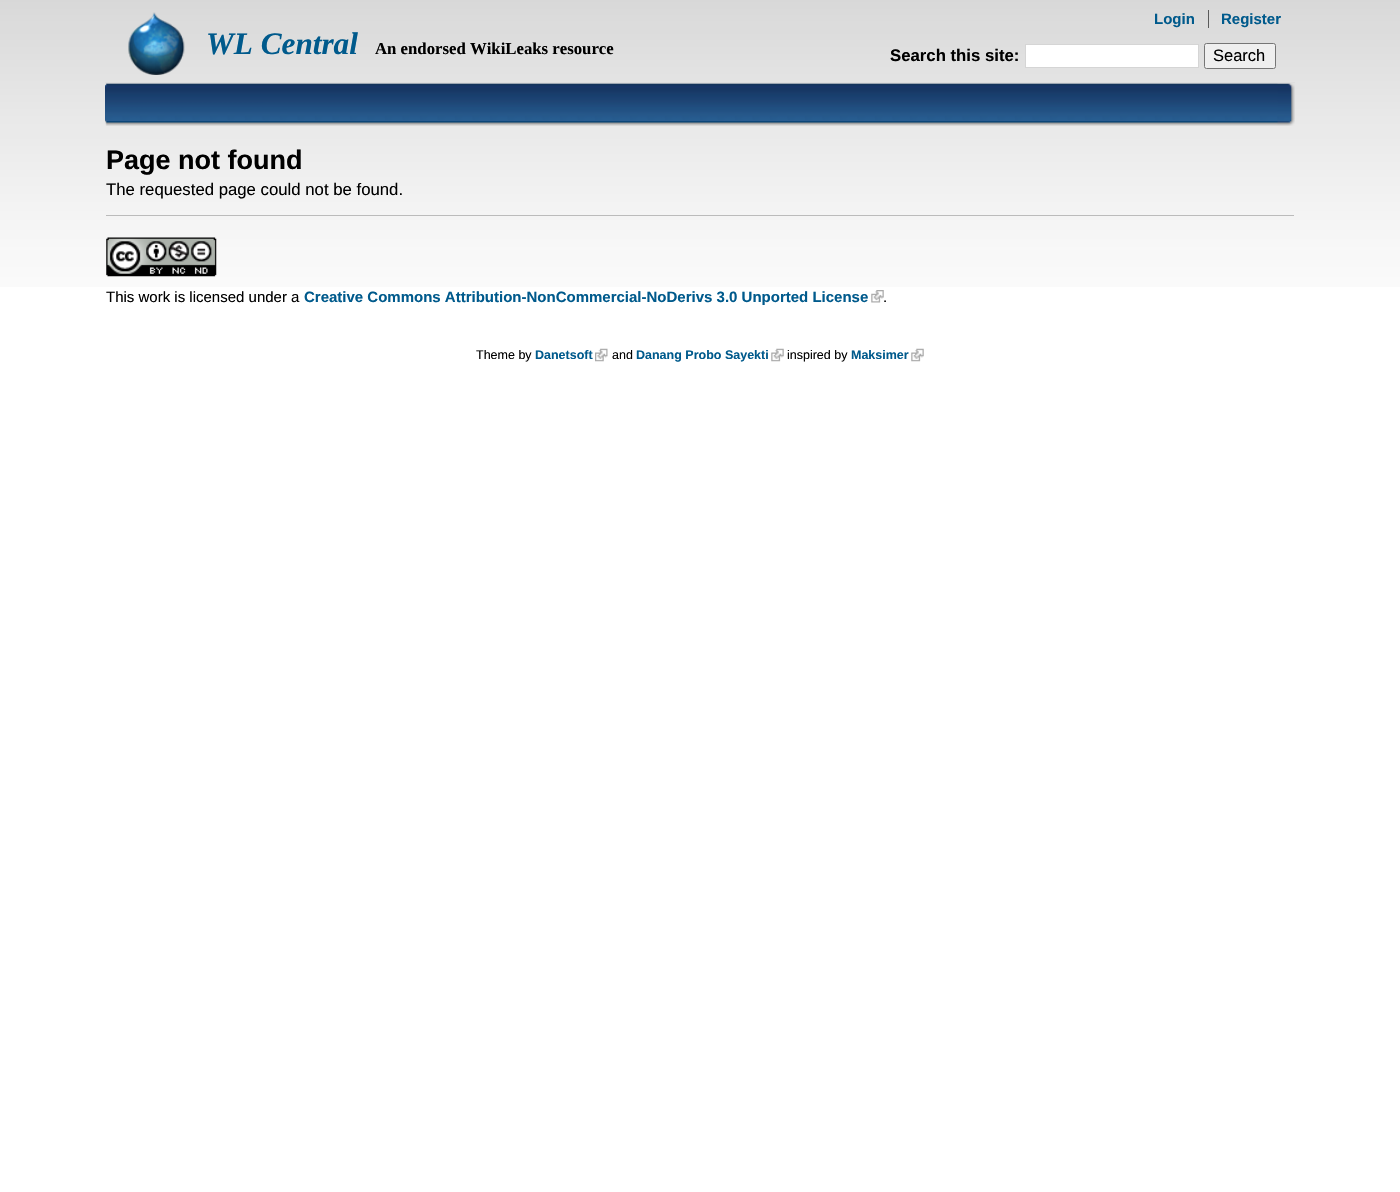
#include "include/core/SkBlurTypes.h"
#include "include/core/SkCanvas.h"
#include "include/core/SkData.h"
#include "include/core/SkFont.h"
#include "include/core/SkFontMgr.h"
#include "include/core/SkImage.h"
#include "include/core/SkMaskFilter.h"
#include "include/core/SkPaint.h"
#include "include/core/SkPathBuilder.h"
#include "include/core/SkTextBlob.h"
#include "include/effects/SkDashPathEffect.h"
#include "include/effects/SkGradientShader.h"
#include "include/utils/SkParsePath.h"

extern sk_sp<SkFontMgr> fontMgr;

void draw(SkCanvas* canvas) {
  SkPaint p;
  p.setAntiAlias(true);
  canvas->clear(SK_ColorWHITE);
  canvas->drawImageRect(SkImages::DeferredFromEncodedData(SkData::MakeFromFileName("images/1.png")), SkRect::MakeLTRB(0, 0, 1400, 287), SkSamplingOptions());
  canvas->drawImageRect(SkImages::DeferredFromEncodedData(SkData::MakeFromFileName("images/2.png")), SkRect::MakeLTRB(128, 12, 185, 75), SkSamplingOptions());
  p.setColor(SkColorSetRGB(90, 90, 90));
  canvas->drawRect(SkRect::MakeLTRB(1208, 10, 1209, 28), p);
  p.setColor(SK_ColorWHITE);
  canvas->drawRect(SkRect::MakeLTRB(1025.5f, 44.5f, 1198.5f, 67.5f), p);
  p.setStyle(SkPaint::kStroke_Style);
  p.setStrokeWidth(1);
  p.setColor(SkColorSetRGB(213, 213, 213));
  canvas->drawRect(SkRect::MakeLTRB(1025.5f, 44.5f, 1198.5f, 67.5f), p);
  p.setStyle(SkPaint::kFill_Style);
  p.setColor(SkColorSetRGB(239, 239, 239));
  canvas->drawRoundRect(SkRect::MakeLTRB(1204.5f, 43.5f, 1275.5f, 68.5f), 2, 2, p);
  p.setStyle(SkPaint::kStroke_Style);
  p.setColor(SkColorSetRGB(118, 118, 118));
  canvas->drawRoundRect(SkRect::MakeLTRB(1204.5f, 43.5f, 1275.5f, 68.5f), 2, 2, p);
  canvas->drawImageRect(SkImages::DeferredFromEncodedData(SkData::MakeFromFileName("images/3.png")), SkRect::MakeLTRB(105, 82, 1295, 126), SkSamplingOptions());
  canvas->drawImageRect(SkImages::DeferredFromEncodedData(SkData::MakeFromFileName("images/4.png")), SkRect::MakeLTRB(105, 83, 107, 126), SkSamplingOptions());
  canvas->drawImageRect(SkImages::DeferredFromEncodedData(SkData::MakeFromFileName("images/5.png")), SkRect::MakeLTRB(1277, 83, 1295, 126), SkSamplingOptions());
  p.setStyle(SkPaint::kFill_Style);
  p.setColor(SkColorSetRGB(187, 187, 187));
  canvas->drawRect(SkRect::MakeLTRB(106, 215, 1294, 216), p);
  canvas->drawImageRect(SkImages::DeferredFromEncodedData(SkData::MakeFromFileName("images/6.png")), SkRect::MakeLTRB(106, 237, 217, 277), SkSamplingOptions());
  canvas->drawImageRect(SkImages::DeferredFromEncodedData(SkData::MakeFromFileName("images/7.png")), SkRect::MakeLTRB(871, 290, 884, 303), SkSamplingOptions());
  canvas->drawImageRect(SkImages::DeferredFromEncodedData(SkData::MakeFromFileName("images/8.png")), SkRect::MakeLTRB(595, 348, 608, 362), SkSamplingOptions());
  canvas->drawImageRect(SkImages::DeferredFromEncodedData(SkData::MakeFromFileName("images/9.png")), SkRect::MakeLTRB(771, 348, 784, 362), SkSamplingOptions());
  canvas->drawImageRect(SkImages::DeferredFromEncodedData(SkData::MakeFromFileName("images/9.png")), SkRect::MakeLTRB(911, 348, 924, 362), SkSamplingOptions());
  SkFont font1(fontMgr->matchFamilyStyle("Liberation Sans", SkFontStyle::Bold()), 15);
  font1.setSubpixel(true);
  p.setColor(SkColorSetRGB(0, 90, 140));
  canvas->drawString("Login", 1154, 24, font1, p);
  canvas->drawString("Register", 1221, 24, font1, p);
  SkFont font2(fontMgr->matchFamilyStyle("Liberation Serif", SkFontStyle::BoldItalic()), 31.25f);
  font2.setSubpixel(true);
  canvas->drawString("WL Central", 206, 54, font2, p);
  SkFont font3(fontMgr->matchFamilyStyle("Liberation Serif", SkFontStyle::Bold()), 16.75f);
  font3.setSubpixel(true);
  p.setColor(SK_ColorBLACK);
  canvas->drawString("An endorsed WikiLeaks resource", 375, 54, font3, p);
  SkFont font4(fontMgr->matchFamilyStyle("Liberation Sans", SkFontStyle::Bold()), 16.75f);
  font4.setSubpixel(true);
  canvas->drawString("Search this site:", 890, 61, font4, p);
  SkFont font5(fontMgr->matchFamilyStyle("Liberation Sans", SkFontStyle::Normal()), 16.5f);
  font5.setSubpixel(true);
  canvas->drawString("Search", 1213, 61, font5, p);
  SkFont font6(fontMgr->matchFamilyStyle("Liberation Sans", SkFontStyle::Bold()), 27);
  font6.setSubpixel(true);
  canvas->drawString("Page not found", 106, 169, font6, p);
  SkFont font7(fontMgr->matchFamilyStyle("Liberation Sans", SkFontStyle::Normal()), 16.75f);
  font7.setSubpixel(true);
  canvas->drawString("The requested page could not be found.", 106, 195, font7, p);
  SkFont font8(fontMgr->matchFamilyStyle("Liberation Sans", SkFontStyle::Normal()), 15);
  font8.setSubpixel(true);
  canvas->drawString("This work is licensed under a", 106, 302, font8, p);
  p.setColor(SkColorSetRGB(0, 90, 140));
  canvas->drawString("Creative Commons Attribution-NonCommercial-NoDerivs 3.0 Unported License", 304, 302, font1, p);
  p.setColor(SK_ColorBLACK);
  canvas->drawString(".", 883, 302, font8, p);
  SkFont font9(fontMgr->matchFamilyStyle("Liberation Sans", SkFontStyle::Normal()), 12.5f);
  font9.setSubpixel(true);
  canvas->drawString("Theme by", 476, 359, font9, p);
  SkFont font10(fontMgr->matchFamilyStyle("Liberation Sans", SkFontStyle::Bold()), 12.5f);
  font10.setSubpixel(true);
  p.setColor(SkColorSetRGB(0, 90, 140));
  canvas->drawString("Danetsoft", 535, 359, font10, p);
  p.setColor(SK_ColorBLACK);
  canvas->drawString("and", 612, 359, font9, p);
  p.setColor(SkColorSetRGB(0, 90, 140));
  canvas->drawString("Danang Probo Sayekti", 636, 359, font10, p);
  p.setColor(SK_ColorBLACK);
  canvas->drawString("inspired by", 787, 359, font9, p);
  p.setColor(SkColorSetRGB(0, 90, 140));
  canvas->drawString("Maksimer", 851, 359, font10, p);
}
